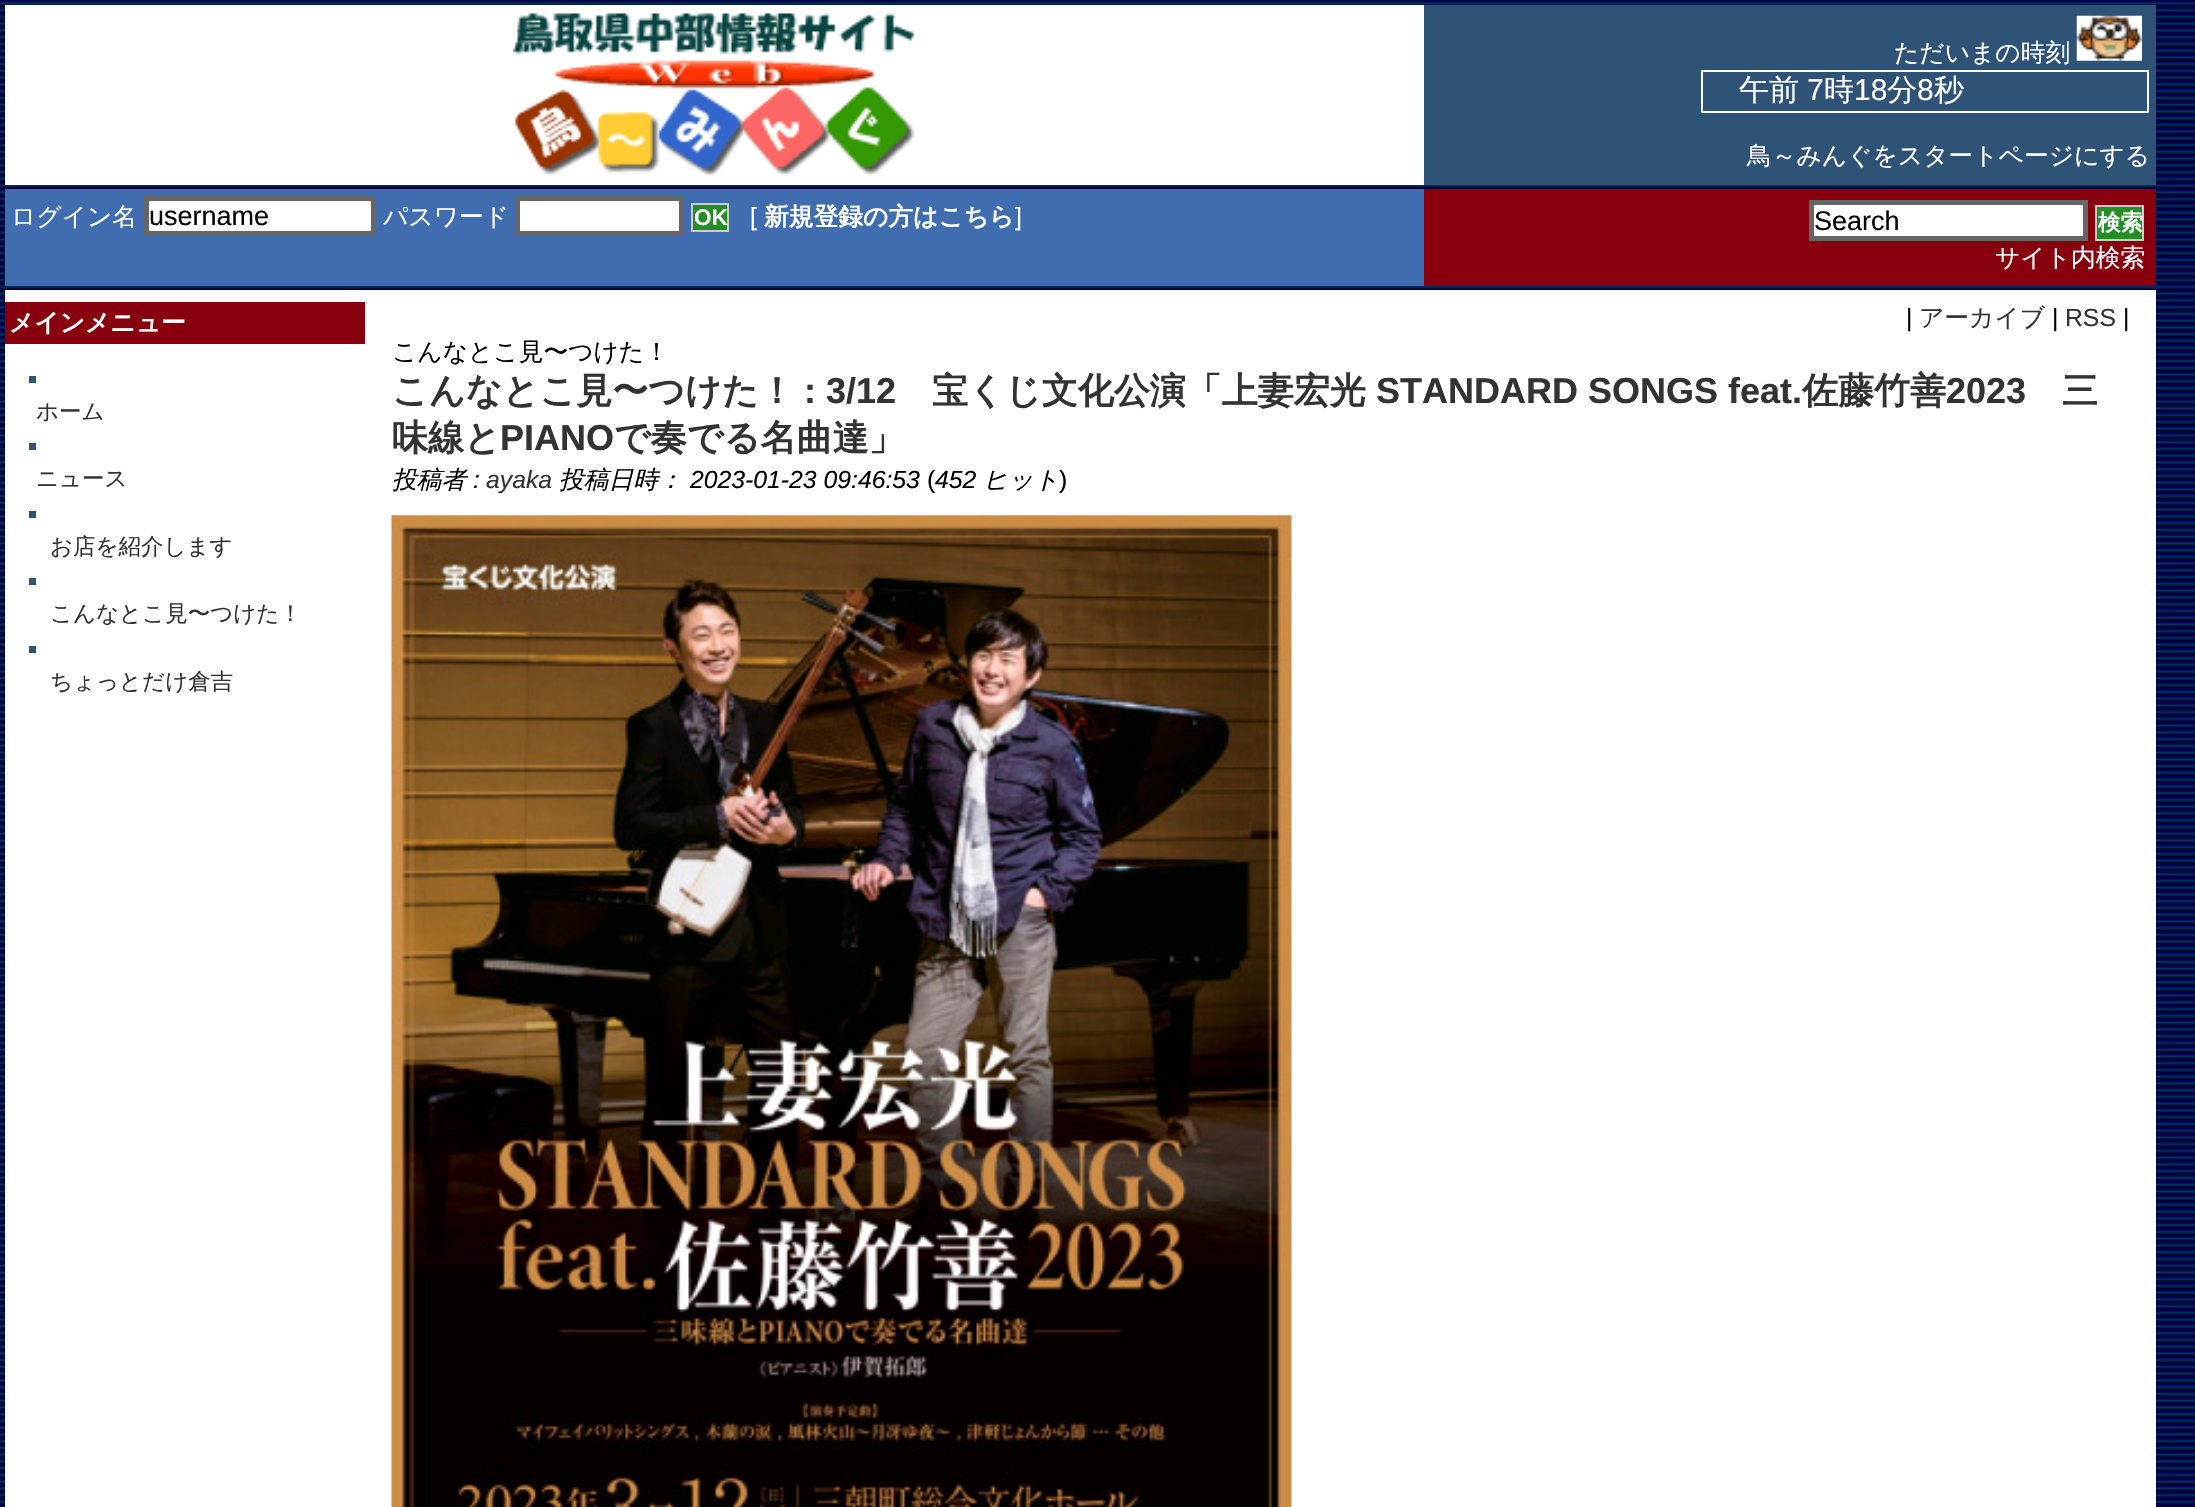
#include "include/core/SkBlurTypes.h"
#include "include/core/SkCanvas.h"
#include "include/core/SkData.h"
#include "include/core/SkFont.h"
#include "include/core/SkFontMgr.h"
#include "include/core/SkImage.h"
#include "include/core/SkMaskFilter.h"
#include "include/core/SkPaint.h"
#include "include/core/SkPathBuilder.h"
#include "include/core/SkTextBlob.h"
#include "include/effects/SkDashPathEffect.h"
#include "include/effects/SkGradientShader.h"
#include "include/utils/SkParsePath.h"

extern sk_sp<SkFontMgr> fontMgr;

void draw(SkCanvas* canvas) {
  SkPaint p;
  p.setAntiAlias(true);
  canvas->clear(SK_ColorWHITE);
  canvas->drawImageRect(SkImages::DeferredFromEncodedData(SkData::MakeFromFileName("images/1.png")), SkRect::MakeLTRB(0, 0, 2195, 1507), SkSamplingOptions());
  p.setColor(SK_ColorWHITE);
  canvas->drawRect(SkRect::MakeLTRB(5, 5, 1424, 185), p);
  canvas->drawImageRect(SkImages::DeferredFromEncodedData(SkData::MakeFromFileName("images/2.png")), SkRect::MakeLTRB(513, 13, 916, 176), SkSamplingOptions());
  p.setColor(SkColorSetRGB(47, 83, 118));
  canvas->drawRect(SkRect::MakeLTRB(1424, 5, 2156, 185), p);
  canvas->drawImageRect(SkImages::DeferredFromEncodedData(SkData::MakeFromFileName("images/3.png")), SkRect::MakeLTRB(2076, 15, 2142, 61), SkSamplingOptions());
  p.setStyle(SkPaint::kStroke_Style);
  p.setStrokeWidth(2);
  p.setColor(SK_ColorWHITE);
  canvas->drawRect(SkRect::MakeLTRB(1702, 71, 2148, 112), p);
  p.setStyle(SkPaint::kFill_Style);
  p.setColor(SkColorSetRGB(64, 108, 176));
  canvas->drawRect(SkRect::MakeLTRB(5, 189, 1424, 286), p);
  p.setColor(SK_ColorWHITE);
  canvas->drawRect(SkRect::MakeLTRB(146.5f, 198.5f, 373.5f, 233.5f), p);
  p.setStyle(SkPaint::kStroke_Style);
  p.setStrokeWidth(5);
  p.setColor(SkColorSetRGB(102, 102, 102));
  canvas->drawRect(SkRect::MakeLTRB(146.5f, 198.5f, 373.5f, 233.5f), p);
  p.setStyle(SkPaint::kFill_Style);
  p.setColor(SK_ColorWHITE);
  canvas->drawRect(SkRect::MakeLTRB(517.5f, 198.5f, 681.5f, 233.5f), p);
  p.setStyle(SkPaint::kStroke_Style);
  p.setColor(SkColorSetRGB(102, 102, 102));
  canvas->drawRect(SkRect::MakeLTRB(517.5f, 198.5f, 681.5f, 233.5f), p);
  p.setStyle(SkPaint::kFill_Style);
  p.setColor(SkColorSetRGB(35, 142, 35));
  canvas->drawRect(SkRect::MakeLTRB(692, 204, 728, 231), p);
  p.setStyle(SkPaint::kStroke_Style);
  p.setStrokeWidth(2);
  p.setColor(SkColorSetRGB(204, 204, 204));
  canvas->drawRect(SkRect::MakeLTRB(692, 204, 728, 231), p);
  p.setStyle(SkPaint::kFill_Style);
  p.setColor(SkColorSetRGB(136, 0, 13));
  canvas->drawRect(SkRect::MakeLTRB(1424, 189, 2156, 286), p);
  p.setColor(SK_ColorWHITE);
  canvas->drawRect(SkRect::MakeLTRB(1811.5f, 202.5f, 2085.5f, 238.5f), p);
  p.setStyle(SkPaint::kStroke_Style);
  p.setStrokeWidth(5);
  p.setColor(SkColorSetRGB(102, 102, 102));
  canvas->drawRect(SkRect::MakeLTRB(1811.5f, 202.5f, 2085.5f, 238.5f), p);
  p.setStyle(SkPaint::kFill_Style);
  p.setColor(SkColorSetRGB(35, 142, 35));
  canvas->drawRect(SkRect::MakeLTRB(2096, 206, 2143, 240), p);
  p.setStyle(SkPaint::kStroke_Style);
  p.setStrokeWidth(2);
  p.setColor(SkColorSetRGB(204, 204, 204));
  canvas->drawRect(SkRect::MakeLTRB(2096, 206, 2143, 240), p);
  p.setStyle(SkPaint::kFill_Style);
  p.setColor(SK_ColorWHITE);
  canvas->drawRect(SkRect::MakeLTRB(5, 290, 2156, 1507), p);
  p.setColor(SkColorSetRGB(136, 0, 13));
  canvas->drawRect(SkRect::MakeLTRB(5, 302, 365, 344), p);
  p.setColor(SkColorSetRGB(47, 83, 118));
  canvas->drawRect(SkRect::MakeLTRB(29, 376, 36, 383), p);
  canvas->drawRect(SkRect::MakeLTRB(29, 443, 36, 450), p);
  canvas->drawRect(SkRect::MakeLTRB(29, 511, 36, 518), p);
  canvas->drawRect(SkRect::MakeLTRB(29, 578, 36, 585), p);
  canvas->drawRect(SkRect::MakeLTRB(29, 646, 36, 653), p);
  canvas->drawImageRect(SkImages::DeferredFromEncodedData(SkData::MakeFromFileName("images/4.png")), SkRect::MakeLTRB(391, 515, 1292, 1507), SkSamplingOptions());
  SkFont font1(fontMgr->matchFamilyStyle("WenQuanYi Zen Hei", SkFontStyle(500, SkFontStyle::kNormal_Width, SkFontStyle::kUpright_Slant)), 24.75f);
  font1.setSubpixel(true);
  p.setColor(SK_ColorWHITE);
  canvas->drawString("ただいまの時刻", 1894, 61, font1, p);
  SkFont font2(fontMgr->matchFamilyStyle("WenQuanYi Zen Hei", SkFontStyle(500, SkFontStyle::kNormal_Width, SkFontStyle::kUpright_Slant)), 30);
  font2.setSubpixel(true);
  canvas->drawString("午前", 1739, 100, font2, p);
  SkFont font3(fontMgr->matchFamilyStyle("Liberation Sans", SkFontStyle::Normal()), 30);
  font3.setSubpixel(true);
  canvas->drawString("7", 1807, 100, font3, p);
  canvas->drawString("時", 1824, 100, font2, p);
  canvas->drawString("18", 1854, 100, font3, p);
  canvas->drawString("分", 1887, 100, font2, p);
  canvas->drawString("8", 1917, 100, font3, p);
  canvas->drawString("秒", 1934, 100, font2, p);
  canvas->drawString("鳥～みんぐをスタートページにする", 1747, 164, font1, p);
  canvas->drawString("ログイン名", 11, 225, font1, p);
  SkFont font4(fontMgr->matchFamilyStyle("Liberation Sans", SkFontStyle::Normal()), 27);
  font4.setSubpixel(true);
  p.setColor(SK_ColorBLACK);
  canvas->drawString("username", 149, 225, font4, p);
  p.setColor(SK_ColorWHITE);
  canvas->drawString("パスワード", 383, 225, font1, p);
  SkFont font5(fontMgr->matchFamilyStyle("Liberation Sans", SkFontStyle::Bold()), 22.5f);
  font5.setSubpixel(true);
  canvas->drawString("OK", 694, 225, font5, p);
  SkFont font6(fontMgr->matchFamilyStyle("Liberation Sans", SkFontStyle::Normal()), 24.75f);
  font6.setSubpixel(true);
  canvas->drawString("[", 750, 225, font6, p);
  SkFont font7(fontMgr->matchFamilyStyle("WenQuanYi Zen Hei", SkFontStyle::Bold()), 24.75f);
  font7.setSubpixel(true);
  canvas->drawString("新規登録の方はこちら", 764, 225, font7, p);
  canvas->drawString("]", 1015, 225, font6, p);
  p.setColor(SK_ColorBLACK);
  canvas->drawString("Search", 1814, 230, font4, p);
  SkFont font8(fontMgr->matchFamilyStyle("WenQuanYi Zen Hei", SkFontStyle::Bold()), 22.5f);
  font8.setSubpixel(true);
  p.setColor(SK_ColorWHITE);
  canvas->drawString("検索", 2098, 230, font8, p);
  canvas->drawString("サイト内検索", 1995, 266, font1, p);
  canvas->drawString("メインメニュー", 9, 331, font7, p);
  SkFont font9(fontMgr->matchFamilyStyle("WenQuanYi Zen Hei", SkFontStyle(500, SkFontStyle::kNormal_Width, SkFontStyle::kUpright_Slant)), 22.5f);
  font9.setSubpixel(true);
  p.setColor(SkColorSetRGB(51, 51, 51));
  canvas->drawString("ホーム", 36, 419, font9, p);
  canvas->drawString("ニュース", 36, 486, font9, p);
  canvas->drawString("お店を紹介します", 50, 554, font9, p);
  canvas->drawString("こんなとこ見〜つけた！", 50, 621, font9, p);
  canvas->drawString("ちょっとだけ倉吉", 50, 689, font9, p);
  p.setColor(SK_ColorBLACK);
  canvas->drawString("|", 1906, 326, font6, p);
  p.setColor(SkColorSetRGB(51, 51, 51));
  canvas->drawString("アーカイブ", 1919, 326, font1, p);
  p.setColor(SK_ColorBLACK);
  canvas->drawString("|", 2052, 326, font6, p);
  p.setColor(SkColorSetRGB(51, 51, 51));
  canvas->drawString("RSS", 2065, 326, font6, p);
  p.setColor(SK_ColorBLACK);
  canvas->drawString("|", 2123, 326, font6, p);
  canvas->drawString("こんなとこ見〜つけた！", 392, 360, font1, p);
  SkFont font10(fontMgr->matchFamilyStyle("WenQuanYi Zen Hei", SkFontStyle::Bold()), 36);
  font10.setSubpixel(true);
  p.setColor(SkColorSetRGB(51, 51, 51));
  canvas->drawString("こんなとこ見〜つけた！", 392, 403, font10, p);
  SkFont font11(fontMgr->matchFamilyStyle("Liberation Sans", SkFontStyle::Bold()), 36);
  font11.setSubpixel(true);
  canvas->drawString(": 3/12", 804, 403, font11, p);
  canvas->drawString("宝くじ文化公演「上妻宏光", 932, 403, font10, p);
  canvas->drawString("STANDARD SONGS feat.", 1376, 403, font11, p);
  canvas->drawString("佐藤竹善", 1802, 403, font10, p);
  canvas->drawString("2023", 1946, 403, font11, p);
  canvas->drawString("三", 2062, 403, font10, p);
  canvas->drawString("味線と", 392, 450, font10, p);
  canvas->drawString("PIANO", 500, 450, font11, p);
  canvas->drawString("で奏でる名曲達」", 614, 450, font10, p);
  SkFont font12(fontMgr->matchFamilyStyle("WenQuanYi Zen Hei", SkFontStyle(500, SkFontStyle::kNormal_Width, SkFontStyle::kItalic_Slant)), 24.75f);
  font12.setSubpixel(true);
  p.setColor(SK_ColorBLACK);
  canvas->drawString("投稿者", 392, 488, font12, p);
  SkFont font13(fontMgr->matchFamilyStyle("Liberation Sans", SkFontStyle::Italic()), 24.75f);
  font13.setSubpixel(true);
  canvas->drawString(":", 473, 488, font13, p);
  p.setColor(SkColorSetRGB(51, 51, 51));
  canvas->drawString("ayaka", 486, 488, font13, p);
  p.setColor(SK_ColorBLACK);
  canvas->drawString("投稿日時：", 559, 488, font12, p);
  canvas->drawString("2023-01-23 09:46:53", 690, 488, font13, p);
  canvas->drawString("(", 927, 488, font6, p);
  canvas->drawString("452", 935, 488, font13, p);
  canvas->drawString("ヒット", 983, 488, font12, p);
  canvas->drawString(")", 1059, 488, font6, p);
}
